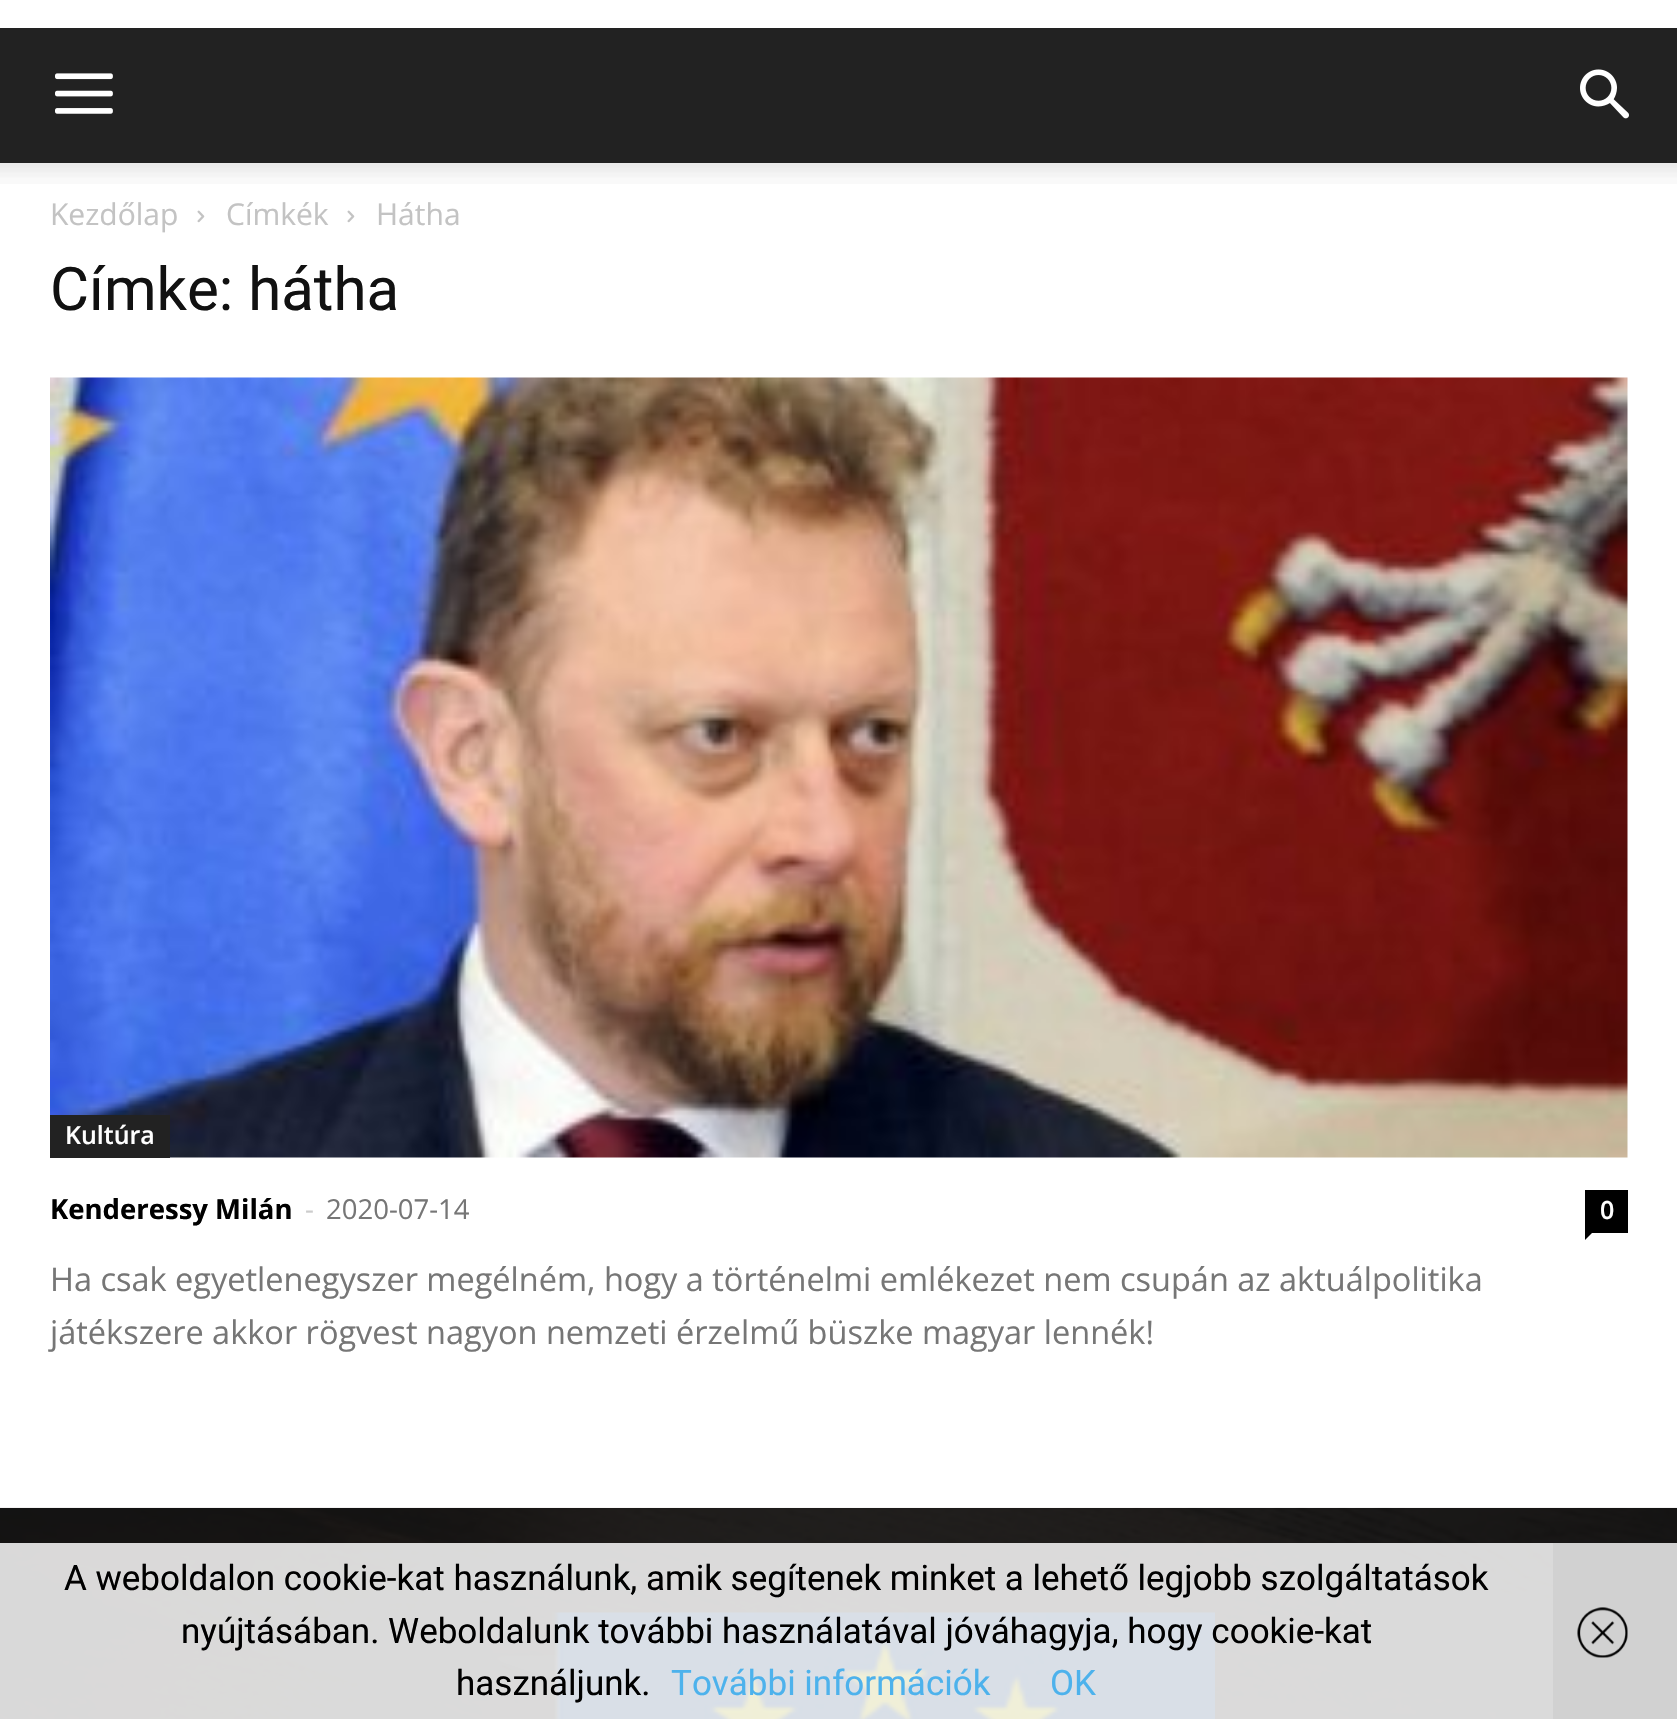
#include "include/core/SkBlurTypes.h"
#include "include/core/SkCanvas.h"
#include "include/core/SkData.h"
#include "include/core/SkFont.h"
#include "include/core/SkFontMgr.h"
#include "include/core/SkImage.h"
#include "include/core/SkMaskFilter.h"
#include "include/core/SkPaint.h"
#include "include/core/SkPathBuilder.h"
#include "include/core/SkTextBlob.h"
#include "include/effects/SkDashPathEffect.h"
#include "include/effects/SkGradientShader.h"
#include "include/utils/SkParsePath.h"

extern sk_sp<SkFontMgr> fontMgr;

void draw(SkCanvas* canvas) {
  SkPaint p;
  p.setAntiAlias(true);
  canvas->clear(SK_ColorWHITE);
  p.setColor(SkColorSetRGB(34, 34, 34));
  canvas->drawRect(SkRect::MakeLTRB(0, 28, 1677, 163), p);
  canvas->drawImageRect(SkImages::DeferredFromEncodedData(SkData::MakeFromFileName("images/1.png")), SkRect::MakeLTRB(55, 73, 113, 114), SkSamplingOptions());
  canvas->drawImageRect(SkImages::DeferredFromEncodedData(SkData::MakeFromFileName("images/2.png")), SkRect::MakeLTRB(1580, 69, 1629, 119), SkSamplingOptions());
  canvas->drawImageRect(SkImages::DeferredFromEncodedData(SkData::MakeFromFileName("images/3.png")), SkRect::MakeLTRB(0, 163, 1677, 184), SkSamplingOptions());
  canvas->drawImageRect(SkImages::DeferredFromEncodedData(SkData::MakeFromFileName("images/4.png")), SkRect::MakeLTRB(197, 210, 205, 223), SkSamplingOptions());
  canvas->drawImageRect(SkImages::DeferredFromEncodedData(SkData::MakeFromFileName("images/4.png")), SkRect::MakeLTRB(347, 210, 355, 223), SkSamplingOptions());
  canvas->drawImageRect(SkImages::DeferredFromEncodedData(SkData::MakeFromFileName("images/5.png")), SkRect::MakeLTRB(50, 377, 1628, 1158), SkSamplingOptions());
  canvas->drawRect(SkRect::MakeLTRB(50, 1115, 170, 1158), p);
  p.setColor(SK_ColorBLACK);
  canvas->drawRect(SkRect::MakeLTRB(1585, 1190, 1628, 1233), p);
  canvas->drawPath(SkPathBuilder().moveTo(1585, 1232.5f).lineTo(1592.5f, 1232.5f).lineTo(1585, 1240).close().detach(), p);
  p.setColor(SkColorSetRGB(17, 17, 17));
  canvas->drawRect(SkRect::MakeLTRB(0, 1508, 1677, 1719), p);
  canvas->drawImageRect(SkImages::DeferredFromEncodedData(SkData::MakeFromFileName("images/6.png")), SkRect::MakeLTRB(0, 1507, 1677, 1719), SkSamplingOptions());
  canvas->drawImageRect(SkImages::DeferredFromEncodedData(SkData::MakeFromFileName("images/7.png")), SkRect::MakeLTRB(552, 1612, 1215, 1719), SkSamplingOptions());
  p.setColor(SkColorSetARGB(230, 238, 238, 238));
  canvas->drawRect(SkRect::MakeLTRB(0, 1543, 1553, 1719), p);
  p.setColor(SkColorSetRGB(209, 209, 209));
  canvas->drawRect(SkRect::MakeLTRB(1553, 1543, 1677, 1719), p);
  canvas->drawImageRect(SkImages::DeferredFromEncodedData(SkData::MakeFromFileName("images/8.png")), SkRect::MakeLTRB(1577, 1607, 1628, 1658), SkSamplingOptions());
  SkFont font1(fontMgr->matchFamilyStyle("Open Sans", SkFontStyle::Normal()), 30);
  font1.setSubpixel(true);
  p.setColor(SkColorSetRGB(195, 195, 195));
  canvas->drawString("Kezdőlap", 50, 225, font1, p);
  canvas->drawString("Címkék", 226, 225, font1, p);
  canvas->drawString("Hátha", 376, 225, font1, p);
  SkFont font2(fontMgr->matchFamilyStyle("Roboto", SkFontStyle::Normal()), 60);
  font2.setSubpixel(true);
  p.setColor(SkColorSetRGB(17, 17, 17));
  canvas->drawString("Címke: hátha", 50, 310, font2, p);
  SkFont font3(fontMgr->matchFamilyStyle("Open Sans", SkFontStyle(600, SkFontStyle::kNormal_Width, SkFontStyle::kUpright_Slant)), 25);
  font3.setSubpixel(true);
  p.setColor(SK_ColorWHITE);
  canvas->drawString("Kultúra", 65, 1144, font3, p);
  SkFont font4(fontMgr->matchFamilyStyle("Open Sans", SkFontStyle::Bold()), 27.5f);
  font4.setSubpixel(true);
  p.setColor(SK_ColorBLACK);
  canvas->drawString("Kenderessy Milán", 50, 1219, font4, p);
  SkFont font5(fontMgr->matchFamilyStyle("Open Sans", SkFontStyle::Normal()), 27.5f);
  font5.setSubpixel(true);
  p.setColor(SkColorSetRGB(204, 204, 204));
  canvas->drawString("-", 305, 1219, font5, p);
  p.setColor(SkColorSetRGB(118, 118, 118));
  canvas->drawString("2020-07-14", 326, 1219, font5, p);
  p.setColor(SK_ColorWHITE);
  canvas->drawString("0", 1600, 1219, font3, p);
  SkFont font6(fontMgr->matchFamilyStyle("Open Sans", SkFontStyle::Normal()), 32.5f);
  font6.setSubpixel(true);
  p.setColor(SkColorSetRGB(118, 118, 118));
  canvas->drawString("Ha csak egyetlenegyszer megélném, hogy a történelmi emlékezet nem csupán az aktuálpolitika", 50, 1291, font6, p);
  canvas->drawString("játékszere akkor rögvest nagyon nemzeti érzelmű büszke magyar lennék!", 50, 1344, font6, p);
  SkFont font7(fontMgr->matchFamilyStyle("Roboto", SkFontStyle::Normal()), 35);
  font7.setSubpixel(true);
  p.setColor(SK_ColorBLACK);
  canvas->drawString("A weboldalon cookie-kat használunk, amik segítenek minket a lehető legjobb szolgáltatások", 64, 1590, font7, p);
  canvas->drawString("nyújtásában. Weboldalunk további használatával jóváhagyja, hogy cookie-kat", 181, 1643, font7, p);
  canvas->drawString("használjunk.", 456, 1695, font7, p);
  p.setColor(SkColorSetRGB(77, 178, 236));
  canvas->drawString("További információk", 671, 1695, font7, p);
  canvas->drawString("OK", 1050, 1695, font7, p);
}
